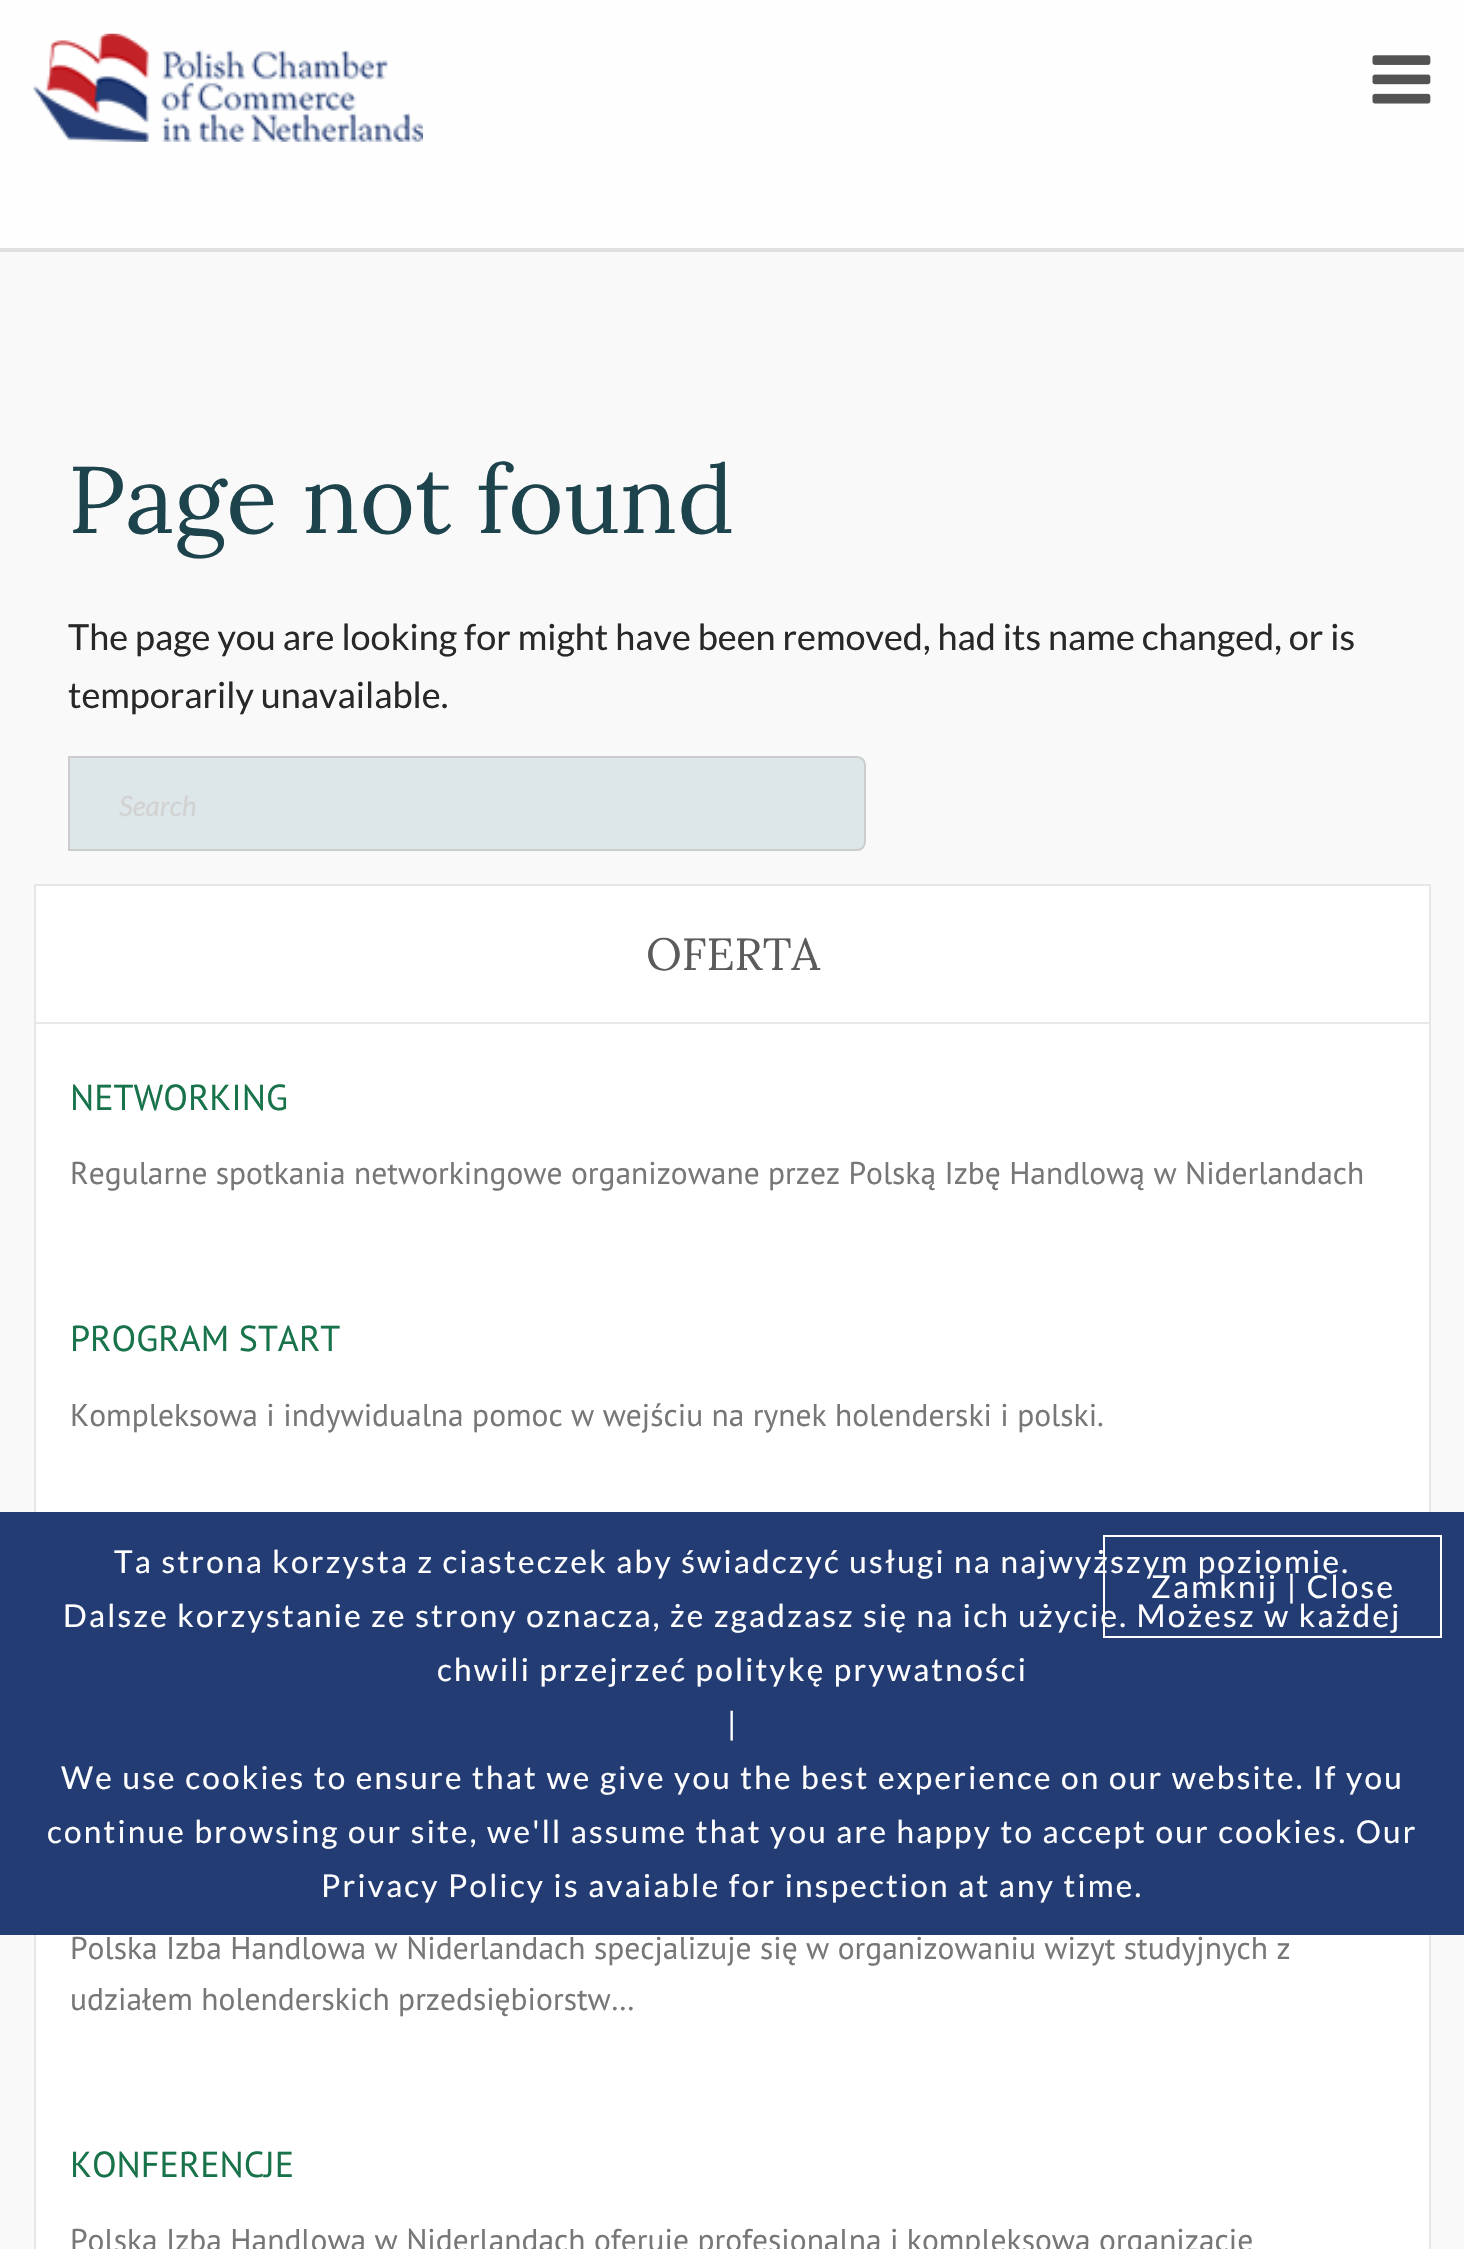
#include "include/core/SkBlurTypes.h"
#include "include/core/SkCanvas.h"
#include "include/core/SkData.h"
#include "include/core/SkFont.h"
#include "include/core/SkFontMgr.h"
#include "include/core/SkImage.h"
#include "include/core/SkMaskFilter.h"
#include "include/core/SkPaint.h"
#include "include/core/SkPathBuilder.h"
#include "include/core/SkTextBlob.h"
#include "include/effects/SkDashPathEffect.h"
#include "include/effects/SkGradientShader.h"
#include "include/utils/SkParsePath.h"

extern sk_sp<SkFontMgr> fontMgr;

void draw(SkCanvas* canvas) {
  SkPaint p;
  p.setAntiAlias(true);
  auto spacedText = [&](const char* s, float x, float y, const SkFont& font, const SkPaint& ink, float letter, float word) {
    std::vector<SkGlyphID> glyphs(font.countText(s, strlen(s), SkTextEncoding::kUTF8));
    std::vector<float> xs(glyphs.size());
    font.textToGlyphs(s, strlen(s), SkTextEncoding::kUTF8, glyphs);
    font.getXPos(glyphs, xs, x);
    float extra = 0;
    for (size_t i = 0; i < glyphs.size(); i++) {
      xs[i] += extra;
      extra += letter + word * (glyphs[i] == font.unicharToGlyph(' '));
    }
    canvas->drawTextBlob(SkTextBlob::MakeFromPosHGlyphs(glyphs, xs, y, font), 0, 0, ink);
  };
  canvas->clear(SkColorSetRGB(249, 249, 249));
  p.setColor(SkColorSetRGB(224, 224, 224));
  canvas->drawPath(SkPathBuilder().moveTo(0, 248).lineTo(0, 252).lineTo(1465, 252).lineTo(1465, 5).lineTo(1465, 248).close().detach(), p);
  p.setColor(SkColorSetRGB(254, 254, 254));
  canvas->drawRect(SkRect::MakeLTRB(0, 0, 1464, 248), p);
  canvas->drawImageRect(SkImages::DeferredFromEncodedData(SkData::MakeFromFileName("images/1.png")), SkRect::MakeLTRB(33, 33, 423, 142), SkSamplingOptions());
  canvas->drawImageRect(SkImages::DeferredFromEncodedData(SkData::MakeFromFileName("images/2.png")), SkRect::MakeLTRB(1372, 55, 1431, 104), SkSamplingOptions());
  p.setColor(SkColorSetRGB(221, 230, 232));
  canvas->drawPath(SkPathBuilder().moveTo(69, 757).lineTo(857, 757).cubicTo(861.5f, 757, 865, 760.5f, 865, 765).lineTo(865, 842).cubicTo(865, 846.5f, 861.5f, 850, 857, 850).lineTo(69, 850).close().detach(), p);
  p.setStyle(SkPaint::kStroke_Style);
  p.setStrokeWidth(2);
  p.setColor(SkColorSetRGB(204, 204, 204));
  canvas->drawPath(SkPathBuilder().moveTo(69, 757).lineTo(857, 757).cubicTo(861.5f, 757, 865, 760.5f, 865, 765).lineTo(865, 842).cubicTo(865, 846.5f, 861.5f, 850, 857, 850).lineTo(69, 850).close().detach(), p);
  p.setStyle(SkPaint::kFill_Style);
  p.setColor(SK_ColorWHITE);
  canvas->drawRect(SkRect::MakeLTRB(35, 885, 1430, 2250), p);
  p.setStyle(SkPaint::kStroke_Style);
  p.setColor(SkColorSetRGB(232, 230, 232));
  canvas->drawRect(SkRect::MakeLTRB(35, 885, 1430, 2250), p);
  p.setStyle(SkPaint::kFill_Style);
  p.setColor(SkColorSetRGB(232, 232, 232));
  canvas->drawRect(SkRect::MakeLTRB(36, 1022, 1429, 1024), p);
  p.setColor(SkColorSetRGB(35, 60, 116));
  canvas->drawRect(SkRect::MakeLTRB(0, 1512, 1464, 1935), p);
  p.setStyle(SkPaint::kStroke_Style);
  p.setColor(SK_ColorWHITE);
  canvas->drawRect(SkRect::MakeLTRB(1104, 1536, 1441, 1637), p);
  SkFont font1(fontMgr->matchFamilyStyle("Lora", SkFontStyle::Normal()), 94.5f);
  font1.setSubpixel(true);
  p.setStyle(SkPaint::kFill_Style);
  p.setColor(SkColorSetRGB(29, 67, 76));
  canvas->drawString("Page not found", 68, 533, font1, p);
  SkFont font2(fontMgr->matchFamilyStyle("Lato", SkFontStyle::Normal()), 36);
  font2.setSubpixel(true);
  p.setColor(SkColorSetRGB(40, 40, 40));
  canvas->drawString("The page you are looking for might have been removed, had its name changed, or is", 68, 650, font2, p);
  canvas->drawString("temporarily unavailable.", 68, 708, font2, p);
  SkFont font3(fontMgr->matchFamilyStyle("Lato", SkFontStyle::Italic()), 28);
  font3.setSubpixel(true);
  p.setColor(SkColorSetRGB(210, 210, 210));
  canvas->drawString("Search", 119, 816, font3, p);
  SkFont font4(fontMgr->matchFamilyStyle("Lora", SkFontStyle::Normal()), 45);
  font4.setSubpixel(true);
  p.setColor(SkColorSetRGB(91, 91, 91));
  canvas->drawString("OFERTA", 646, 970, font4, p);
  SkFont font5(fontMgr->matchFamilyStyle("PT Sans", SkFontStyle::Normal()), 36);
  font5.setSubpixel(true);
  p.setColor(SkColorSetRGB(24, 115, 74));
  canvas->drawString("NETWORKING", 70, 1110, font5, p);
  SkFont font6(fontMgr->matchFamilyStyle("PT Sans", SkFontStyle::Normal()), 31.5f);
  font6.setSubpixel(true);
  p.setColor(SkColorSetRGB(119, 119, 119));
  canvas->drawString("Regularne spotkania networkingowe organizowane przez Polską Izbę Handlową w Niderlandach", 70, 1184, font6, p);
  p.setColor(SkColorSetRGB(24, 115, 74));
  canvas->drawString("PROGRAM START", 70, 1351, font5, p);
  p.setColor(SkColorSetRGB(119, 119, 119));
  canvas->drawString("Kompleksowa i indywidualna pomoc w wejściu na rynek holenderski i polski.", 70, 1426, font6, p);
  canvas->drawString("Polska Izba Handlowa w Niderlandach specjalizuje się w organizowaniu wizyt studyjnych z", 70, 1959, font6, p);
  canvas->drawString("udziałem holenderskich przedsiębiorstw…", 70, 2010, font6, p);
  p.setColor(SkColorSetRGB(24, 115, 74));
  canvas->drawString("KONFERENCJE", 70, 2177, font5, p);
  p.setColor(SkColorSetRGB(119, 119, 119));
  canvas->drawString("Polska Izba Handlowa w Niderlandach oferuje profesjonalną i kompleksową organizację", 70, 2251, font6, p);
  SkFont font7(fontMgr->matchFamilyStyle("Lato", SkFontStyle::Normal()), 31.5f);
  font7.setSubpixel(true);
  p.setColor(SK_ColorWHITE);
  spacedText("Ta strona korzysta z ciasteczek aby świadczyć usługi na najwyższym poziomie.", 114, 1573, font7, p, 2.25f, 0);
  spacedText("Dalsze korzystanie ze strony oznacza, że zgadzasz się na ich użycie. Możesz w każdej", 63, 1627, font7, p, 2.25f, 0);
  spacedText("chwili przejrzeć politykę prywatności", 437, 1681, font7, p, 2.25f, 0);
  spacedText("|", 727, 1735, font7, p, 2.25f, 0);
  spacedText("We use cookies to ensure that we give you the best experience on our website. If you", 61, 1789, font7, p, 2.25f, 0);
  spacedText("continue browsing our site, we'll assume that you are happy to accept our cookies. Our", 47, 1843, font7, p, 2.25f, 0);
  spacedText("Privacy Policy is avaiable for inspection at any time.", 321, 1897, font7, p, 2.25f, 0);
  spacedText("Zamknij | Close", 1151, 1598, font7, p, 2.25f, 0);
}
